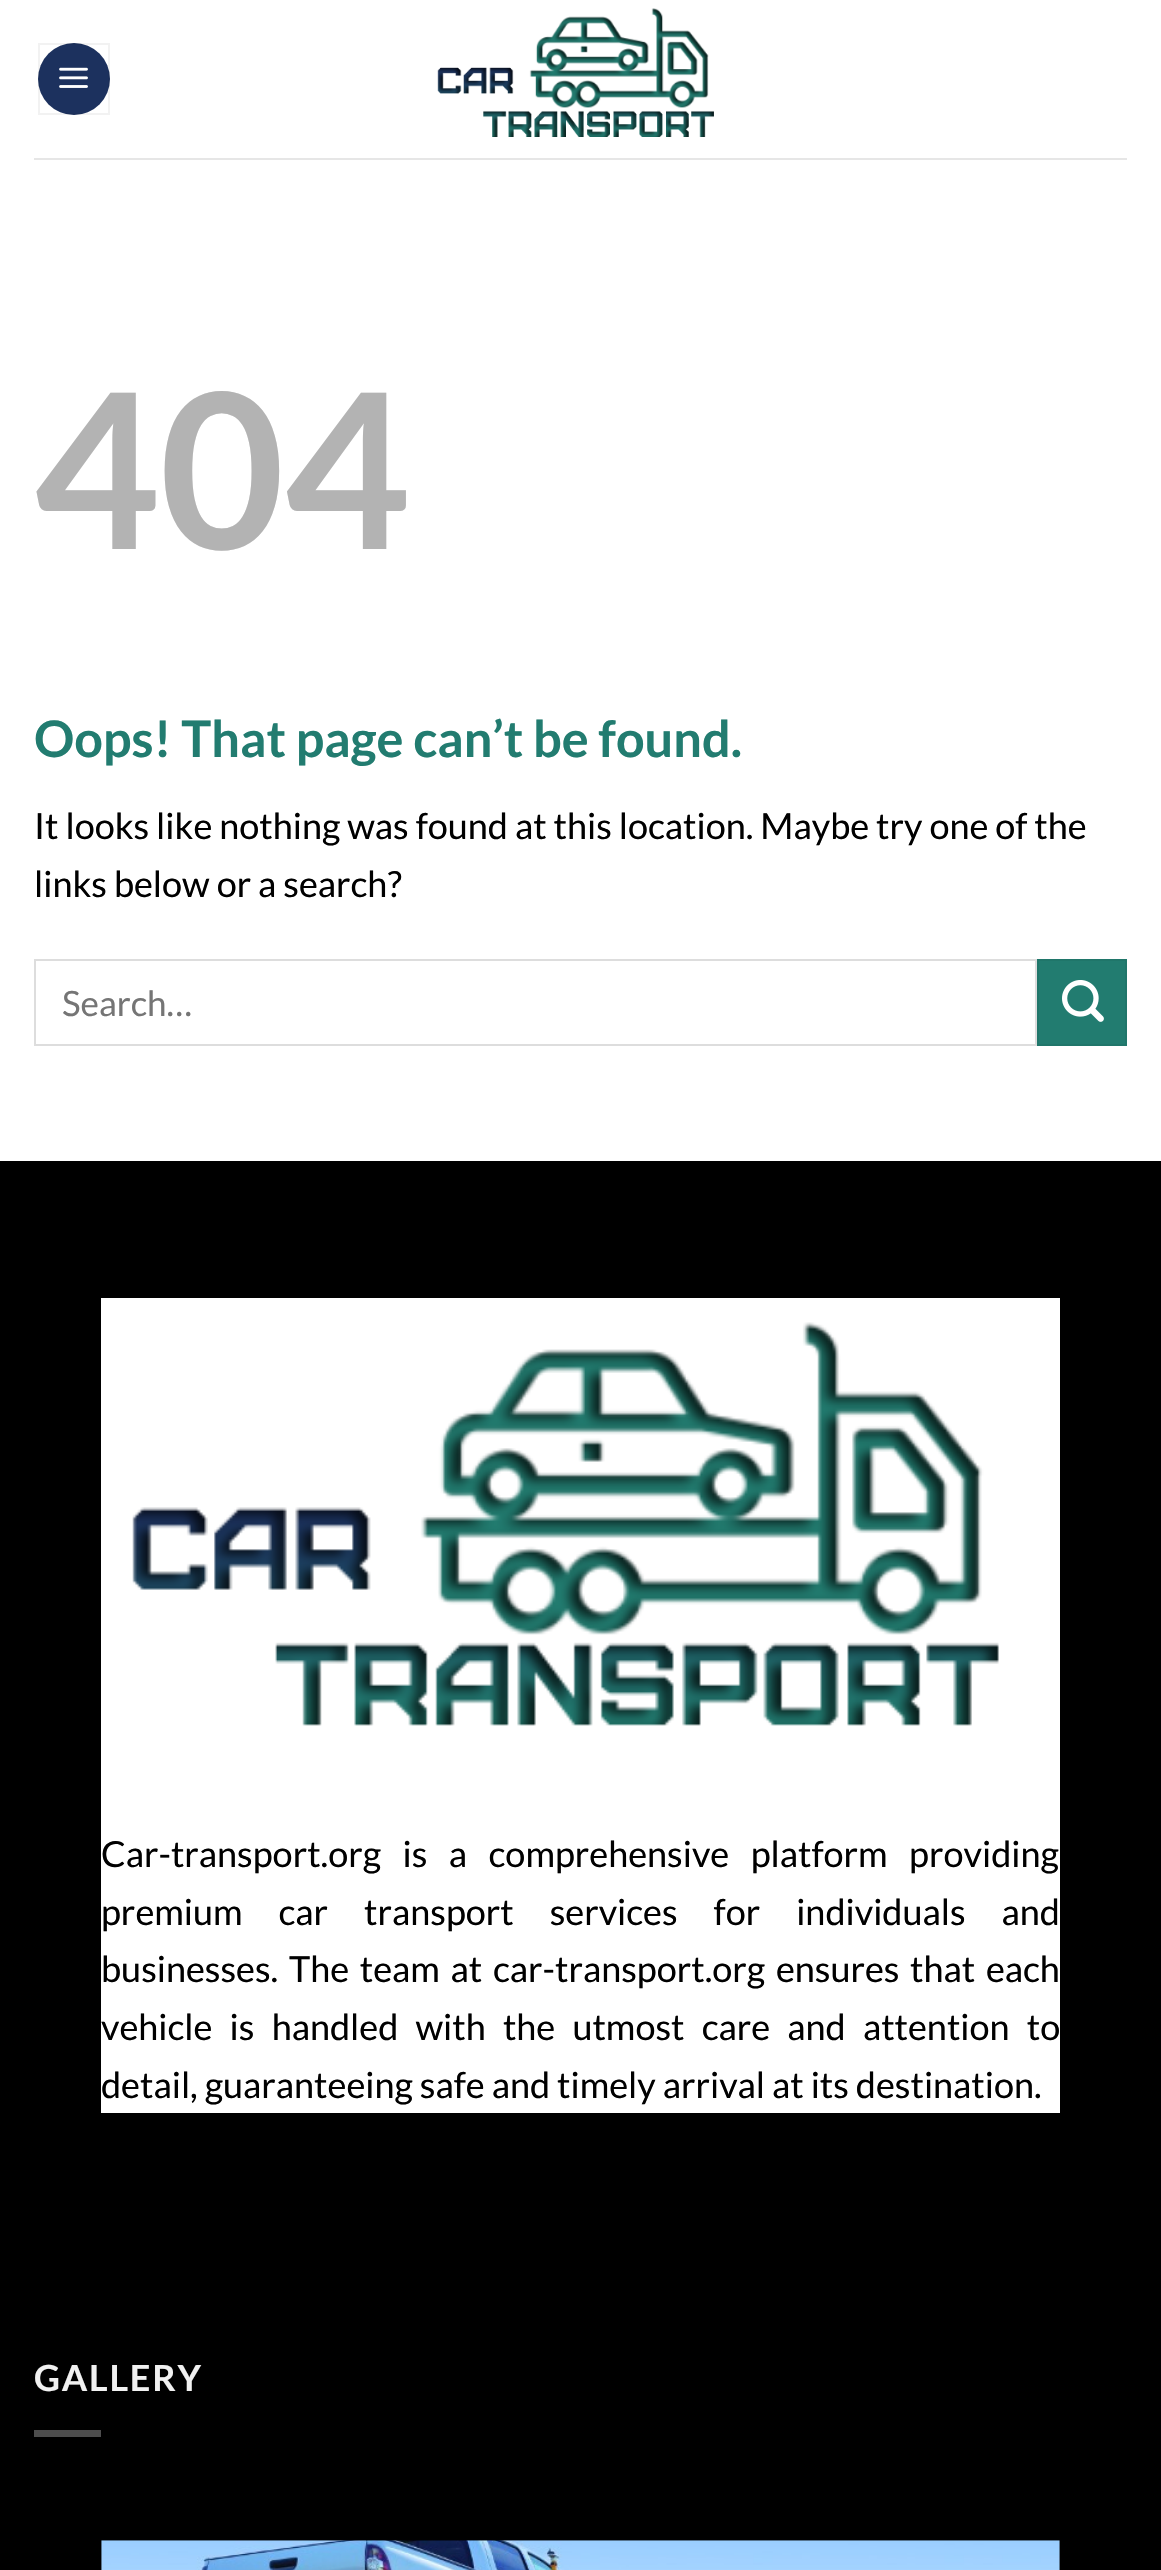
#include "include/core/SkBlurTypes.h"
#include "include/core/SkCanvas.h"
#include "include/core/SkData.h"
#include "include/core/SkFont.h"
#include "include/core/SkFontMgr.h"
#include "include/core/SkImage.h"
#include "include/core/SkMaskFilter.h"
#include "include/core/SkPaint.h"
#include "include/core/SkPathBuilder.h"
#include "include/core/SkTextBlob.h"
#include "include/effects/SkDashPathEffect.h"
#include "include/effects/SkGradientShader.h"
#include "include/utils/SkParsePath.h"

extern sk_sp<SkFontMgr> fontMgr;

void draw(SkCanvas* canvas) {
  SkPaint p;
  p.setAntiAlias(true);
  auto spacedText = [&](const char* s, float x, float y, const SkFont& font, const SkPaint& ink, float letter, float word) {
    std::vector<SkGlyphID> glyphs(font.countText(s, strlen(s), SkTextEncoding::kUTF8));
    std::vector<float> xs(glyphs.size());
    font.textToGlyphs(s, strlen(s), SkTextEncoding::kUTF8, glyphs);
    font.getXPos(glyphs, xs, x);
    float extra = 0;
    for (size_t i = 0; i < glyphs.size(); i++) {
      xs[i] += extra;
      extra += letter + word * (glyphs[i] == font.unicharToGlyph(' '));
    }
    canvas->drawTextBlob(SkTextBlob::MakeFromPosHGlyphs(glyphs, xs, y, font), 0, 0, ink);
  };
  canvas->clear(SK_ColorWHITE);
  p.setColor(SkColorSetRGB(28, 49, 94));
  canvas->drawCircle(74, 79, 36, p);
  p.setStyle(SkPaint::kStroke_Style);
  p.setStrokeWidth(2);
  p.setColor(SkColorSetARGB(13, 0, 0, 0));
  canvas->drawRect(SkRect::MakeLTRB(39, 44, 109, 114), p);
  canvas->drawImageRect(SkImages::DeferredFromEncodedData(SkData::MakeFromFileName("images/1.png")), SkRect::MakeLTRB(59, 67, 88, 88), SkSamplingOptions());
  canvas->drawImageRect(SkImages::DeferredFromEncodedData(SkData::MakeFromFileName("images/2.png")), SkRect::MakeLTRB(437, 8, 714, 137), SkSamplingOptions());
  p.setStyle(SkPaint::kFill_Style);
  p.setColor(SkColorSetRGB(230, 230, 230));
  canvas->drawRect(SkRect::MakeLTRB(34, 158, 1127, 160), p);
  p.setStyle(SkPaint::kStroke_Style);
  p.setColor(SkColorSetRGB(221, 221, 221));
  canvas->drawRect(SkRect::MakeLTRB(35, 960, 1036, 1045), p);
  p.setStyle(SkPaint::kFill_Style);
  p.setColor(SkColorSetRGB(34, 124, 112));
  canvas->drawRect(SkRect::MakeLTRB(1038, 960, 1126, 1045), p);
  p.setStyle(SkPaint::kStroke_Style);
  p.setColor(SkColorSetRGB(32, 118, 106));
  canvas->drawRect(SkRect::MakeLTRB(1038, 960, 1126, 1045), p);
  canvas->drawImageRect(SkImages::DeferredFromEncodedData(SkData::MakeFromFileName("images/3.png")), SkRect::MakeLTRB(1062, 980, 1104, 1022), SkSamplingOptions());
  p.setStyle(SkPaint::kFill_Style);
  p.setColor(SK_ColorBLACK);
  canvas->drawRect(SkRect::MakeLTRB(0, 1161, 1161, 2570), p);
  p.setColor(SK_ColorWHITE);
  canvas->drawRect(SkRect::MakeLTRB(101, 1298, 1060, 2113), p);
  canvas->drawImageRect(SkImages::DeferredFromEncodedData(SkData::MakeFromFileName("images/4.png")), SkRect::MakeLTRB(132, 1322, 999, 1726), SkSamplingOptions());
  p.setColor(SkColorSetRGB(77, 77, 77));
  canvas->drawRect(SkRect::MakeLTRB(34, 2430, 101, 2437), p);
  canvas->drawImageRect(SkImages::DeferredFromEncodedData(SkData::MakeFromFileName("images/5.png")), SkRect::MakeLTRB(101, 2540, 1060, 2570), SkSamplingOptions());
  SkFont font1(fontMgr->matchFamilyStyle("Lato", SkFontStyle::Bold()), 216);
  font1.setSubpixel(true);
  p.setColor(SkColorSetRGB(179, 179, 179));
  canvas->drawString("404", 34, 549, font1, p);
  SkFont font2(fontMgr->matchFamilyStyle("Lato", SkFontStyle::Bold()), 50.4f);
  font2.setSubpixel(true);
  p.setColor(SkColorSetRGB(34, 124, 112));
  canvas->drawString("Oops! That page can’t be found.", 34, 757, font2, p);
  SkFont font3(fontMgr->matchFamilyStyle("Lato", SkFontStyle::Normal()), 36);
  font3.setSubpixel(true);
  p.setColor(SK_ColorBLACK);
  canvas->drawString("It looks like nothing was found at this location. Maybe try one of the", 34, 839, font3, p);
  canvas->drawString("links below or a search?", 34, 897, font3, p);
  SkFont font4(fontMgr->matchFamilyStyle("Lato", SkFontStyle::Normal()), 35);
  font4.setSubpixel(true);
  p.setColor(SkColorSetRGB(117, 117, 117));
  canvas->drawString("Search…", 62, 1016, font4, p);
  p.setColor(SK_ColorBLACK);
  spacedText("Car-transport.org is a comprehensive platform providing", 101, 1867, font3, p, 0, 14.5f);
  spacedText("premium car transport services for individuals and", 101, 1925, font3, p, 0, 29);
  spacedText("businesses. The team at car-transport.org ensures that each", 101, 1982, font3, p, 0, 3.75f);
  spacedText("vehicle is handled with the utmost care and attention to", 101, 2040, font3, p, 0, 10.25f);
  canvas->drawString("detail, guaranteeing safe and timely arrival at its destination.", 101, 2098, font3, p);
  SkFont font5(fontMgr->matchFamilyStyle("Lato", SkFontStyle::Bold()), 36);
  font5.setSubpixel(true);
  p.setColor(SkColorSetRGB(241, 241, 241));
  spacedText("GALLERY", 34, 2391, font5, p, 1.75f, 0);
}
